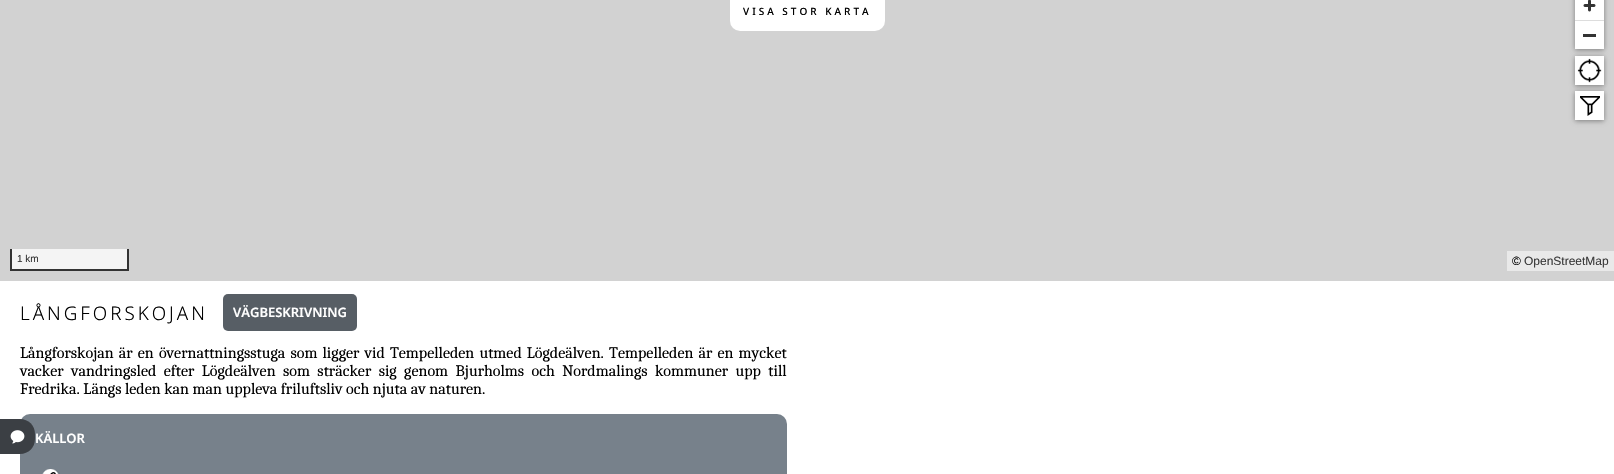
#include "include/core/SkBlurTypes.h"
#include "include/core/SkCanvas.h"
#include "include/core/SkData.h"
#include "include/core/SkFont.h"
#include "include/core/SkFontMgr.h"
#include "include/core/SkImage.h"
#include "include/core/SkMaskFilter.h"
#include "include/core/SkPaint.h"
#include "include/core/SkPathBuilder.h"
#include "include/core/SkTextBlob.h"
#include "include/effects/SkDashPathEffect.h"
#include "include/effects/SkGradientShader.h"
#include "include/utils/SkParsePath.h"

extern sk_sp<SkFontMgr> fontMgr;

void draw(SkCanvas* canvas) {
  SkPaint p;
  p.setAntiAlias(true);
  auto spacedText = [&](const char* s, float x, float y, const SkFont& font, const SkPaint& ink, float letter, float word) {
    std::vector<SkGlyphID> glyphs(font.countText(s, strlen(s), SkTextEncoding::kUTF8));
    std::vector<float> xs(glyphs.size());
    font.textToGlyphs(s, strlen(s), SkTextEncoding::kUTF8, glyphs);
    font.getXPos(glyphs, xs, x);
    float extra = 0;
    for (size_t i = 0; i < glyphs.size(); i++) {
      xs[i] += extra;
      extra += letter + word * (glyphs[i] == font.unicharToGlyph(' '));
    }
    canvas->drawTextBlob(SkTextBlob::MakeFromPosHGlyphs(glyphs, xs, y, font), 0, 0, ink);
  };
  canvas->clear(SK_ColorWHITE);
  p.setColor(SkColorSetRGB(210, 210, 210));
  canvas->drawRect(SkRect::MakeLTRB(0, 0, 1614, 281), p);
  p.setColor(SK_ColorWHITE);
  canvas->drawRoundRect(SkRect::MakeLTRB(730, -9, 885, 31), 10, 10, p);
  p.setColor(SkColorSetARGB(102, 0, 0, 0));
  p.setMaskFilter(SkMaskFilter::MakeBlur(kNormal_SkBlurStyle, 2.5f));
  canvas->drawRect(SkRect::MakeLTRB(1575, -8, 1604, 50), p);
  p.setMaskFilter(nullptr);
  p.setColor(SK_ColorWHITE);
  canvas->drawRect(SkRect::MakeLTRB(1575, 0, 1604, 49), p);
  p.setColor(SkColorSetARGB(102, 0, 0, 0));
  p.setMaskFilter(SkMaskFilter::MakeBlur(kNormal_SkBlurStyle, 2.5f));
  canvas->drawRect(SkRect::MakeLTRB(1575, 57, 1604, 86), p);
  p.setMaskFilter(nullptr);
  p.setColor(SK_ColorWHITE);
  canvas->drawRect(SkRect::MakeLTRB(1575, 56, 1604, 85), p);
  canvas->drawImageRect(SkImages::DeferredFromEncodedData(SkData::MakeFromFileName("images/1.png")), SkRect::MakeLTRB(1577, 58, 1602, 83), SkSamplingOptions());
  p.setColor(SkColorSetARGB(102, 0, 0, 0));
  p.setMaskFilter(SkMaskFilter::MakeBlur(kNormal_SkBlurStyle, 2.5f));
  canvas->drawRect(SkRect::MakeLTRB(1575, 92, 1604, 121), p);
  p.setMaskFilter(nullptr);
  p.setColor(SK_ColorWHITE);
  canvas->drawRect(SkRect::MakeLTRB(1575, 91, 1604, 120), p);
  canvas->drawImageRect(SkImages::DeferredFromEncodedData(SkData::MakeFromFileName("images/2.png")), SkRect::MakeLTRB(1580, 96, 1600, 116), SkSamplingOptions());
  canvas->drawImageRect(SkImages::DeferredFromEncodedData(SkData::MakeFromFileName("images/3.png")), SkRect::MakeLTRB(1583, 0, 1596, 12), SkSamplingOptions());
  p.setColor(SkColorSetRGB(221, 221, 221));
  canvas->drawRect(SkRect::MakeLTRB(1575, 20, 1604, 21), p);
  p.setColor(SkColorSetRGB(51, 51, 51));
  canvas->drawRect(SkRect::MakeLTRB(1583, 34, 1596, 37), p);
  p.setColor(SkColorSetRGB(244, 244, 244));
  canvas->drawRect(SkRect::MakeLTRB(12, 249, 127, 269), p);
  p.setColor(SkColorSetRGB(51, 51, 51));
  canvas->drawRect(SkRect::MakeLTRB(127, 249, 129, 271), p);
  canvas->drawRect(SkRect::MakeLTRB(10, 269, 129, 271), p);
  canvas->drawRect(SkRect::MakeLTRB(10, 249, 12, 271), p);
  p.setColor(SkColorSetRGB(233, 233, 233));
  canvas->drawRect(SkRect::MakeLTRB(1507, 251, 1614, 271), p);
  p.setColor(SkColorSetRGB(119, 129, 139));
  canvas->drawRoundRect(SkRect::MakeLTRB(20, 414, 787, 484), 10, 10, p);
  p.setColor(SkColorSetRGB(59, 63, 68));
  canvas->drawPath(SkPathBuilder().moveTo(0, 419).lineTo(20, 419).cubicTo(28.5f, 419, 35, 425.5f, 35, 434).lineTo(35, 439).cubicTo(35, 447.5f, 28.5f, 454, 20, 454).lineTo(0, 454).close().detach(), p);
  canvas->drawImageRect(SkImages::DeferredFromEncodedData(SkData::MakeFromFileName("images/4.png")), SkRect::MakeLTRB(10, 430, 25, 444), SkSamplingOptions());
  p.setColor(SkColorSetRGB(87, 94, 101));
  canvas->drawRoundRect(SkRect::MakeLTRB(223, 294, 357, 331), 5, 5, p);
  canvas->drawImageRect(SkImages::DeferredFromEncodedData(SkData::MakeFromFileName("images/5.png")), SkRect::MakeLTRB(42, 469, 60, 474), SkSamplingOptions());
  SkFont font1(fontMgr->matchFamilyStyle("Noto Sans", SkFontStyle(500, SkFontStyle::kNormal_Width, SkFontStyle::kUpright_Slant)), 10);
  font1.setSubpixel(true);
  p.setColor(SK_ColorBLACK);
  spacedText("VISA STOR KARTA", 743, 15, font1, p, 3, 0);
  SkFont font2(fontMgr->matchFamilyStyle("Liberation Sans", SkFontStyle::Normal()), 10);
  font2.setSubpixel(true);
  p.setColor(SkColorSetRGB(51, 51, 51));
  canvas->drawString("1 km", 17, 262, font2, p);
  SkFont font3(fontMgr->matchFamilyStyle("Liberation Sans", SkFontStyle::Normal()), 12);
  font3.setSubpixel(true);
  p.setColor(SK_ColorBLACK);
  canvas->drawString("©", 1512, 265, font3, p);
  p.setColor(SkColorSetRGB(58, 58, 58));
  canvas->drawString("OpenStreetMap", 1524, 265, font3, p);
  SkFont font4(fontMgr->matchFamilyStyle("Noto Sans", SkFontStyle(300, SkFontStyle::kNormal_Width, SkFontStyle::kUpright_Slant)), 18.75f);
  font4.setSubpixel(true);
  p.setColor(SK_ColorBLACK);
  spacedText("LÅNGFORSKOJAN", 20, 320, font4, p, 3, 0);
  SkFont font5(fontMgr->matchFamilyStyle("Noto Sans", SkFontStyle(600, SkFontStyle::kNormal_Width, SkFontStyle::kUpright_Slant)), 13);
  font5.setSubpixel(true);
  p.setColor(SK_ColorWHITE);
  canvas->drawString("VÄGBESKRIVNING", 233, 317, font5, p);
  SkFont font6(fontMgr->matchFamilyStyle("Caladea", SkFontStyle::Normal()), 16);
  font6.setSubpixel(true);
  p.setColor(SK_ColorBLACK);
  spacedText("Långforskojan är en övernattningsstuga som ligger vid Tempelleden utmed Lögdeälven. Tempelleden är en mycket", 20, 358, font6, p, 0, 1.6f);
  spacedText("vacker vandringsled efter Lögdeälven som sträcker sig genom Bjurholms och Nordmalings kommuner upp till", 20, 376, font6, p, 0, 3.9f);
  canvas->drawString("Fredrika. Längs leden kan man uppleva friluftsliv och njuta av naturen.", 20, 394, font6, p);
  p.setColor(SK_ColorWHITE);
  canvas->drawString("KÄLLOR", 35, 443, font5, p);
}
